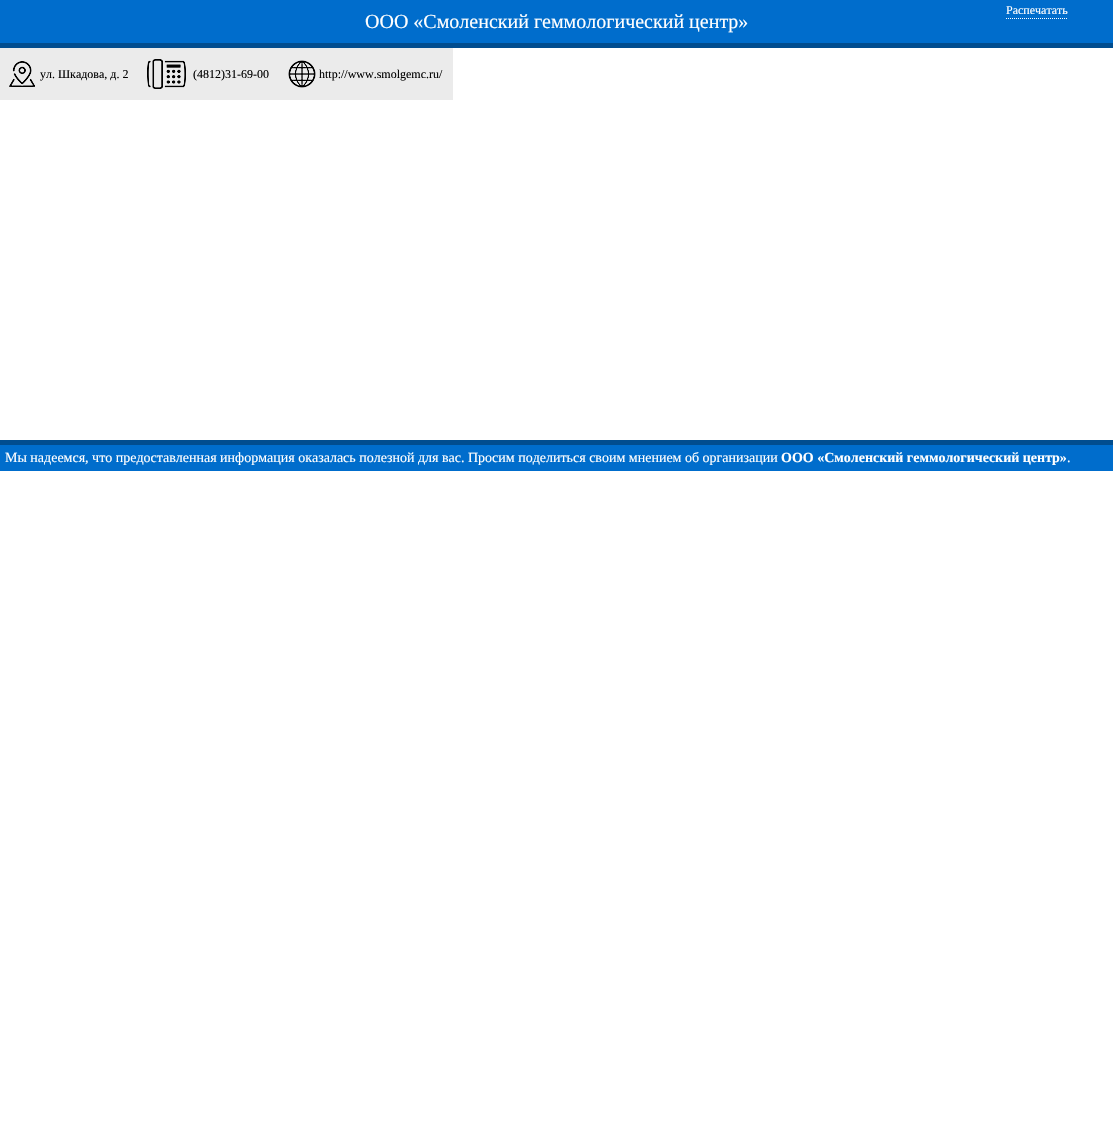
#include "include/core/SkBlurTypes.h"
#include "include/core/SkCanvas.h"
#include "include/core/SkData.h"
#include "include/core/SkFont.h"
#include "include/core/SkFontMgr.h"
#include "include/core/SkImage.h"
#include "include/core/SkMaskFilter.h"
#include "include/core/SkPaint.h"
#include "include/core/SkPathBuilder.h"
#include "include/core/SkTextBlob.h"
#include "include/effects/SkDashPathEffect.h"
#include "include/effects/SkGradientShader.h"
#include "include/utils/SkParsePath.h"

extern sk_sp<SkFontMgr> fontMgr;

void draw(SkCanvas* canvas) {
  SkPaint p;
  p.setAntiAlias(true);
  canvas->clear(SK_ColorWHITE);
  p.setColor(SkColorSetRGB(0, 109, 204));
  canvas->drawRect(SkRect::MakeLTRB(0, 0, 1113, 43), p);
  p.setColor(SkColorSetRGB(1, 77, 143));
  canvas->drawRect(SkRect::MakeLTRB(0, 43, 1113, 48), p);
  p.setStyle(SkPaint::kStroke_Style);
  p.setStrokeWidth(1);
  p.setColor(SK_ColorWHITE);
  p.setPathEffect(SkDashPathEffect::Make({{1, 1}}, 0));
  canvas->drawPath(SkPathBuilder().moveTo(1006, 18.5f).lineTo(1068, 18.5f).detach(), p);
  p.setPathEffect(nullptr);
  p.setStyle(SkPaint::kFill_Style);
  p.setColor(SkColorSetRGB(235, 235, 235));
  canvas->drawRect(SkRect::MakeLTRB(0, 48, 453, 100), p);
  canvas->drawImageRect(SkImages::DeferredFromEncodedData(SkData::MakeFromFileName("images/1.png")), SkRect::MakeLTRB(9, 61, 35, 87), SkSamplingOptions());
  canvas->drawImageRect(SkImages::DeferredFromEncodedData(SkData::MakeFromFileName("images/2.png")), SkRect::MakeLTRB(147, 59, 186, 89), SkSamplingOptions());
  canvas->drawImageRect(SkImages::DeferredFromEncodedData(SkData::MakeFromFileName("images/3.png")), SkRect::MakeLTRB(288, 60, 316, 88), SkSamplingOptions());
  p.setColor(SkColorSetRGB(0, 109, 204));
  canvas->drawRect(SkRect::MakeLTRB(0, 445, 1113, 471), p);
  p.setColor(SkColorSetRGB(1, 77, 143));
  canvas->drawRect(SkRect::MakeLTRB(0, 440, 1113, 445), p);
  SkFont font1(fontMgr->matchFamilyStyle("Liberation Serif", SkFontStyle::Normal()), 12);
  font1.setSubpixel(true);
  p.setColor(SK_ColorWHITE);
  canvas->drawString("Распечатать", 1006, 14, font1, p);
  SkFont font2(fontMgr->matchFamilyStyle("Liberation Serif", SkFontStyle::Normal()), 20);
  font2.setSubpixel(true);
  canvas->drawString("ООО «Смоленский геммологический центр»", 365, 28, font2, p);
  p.setColor(SK_ColorBLACK);
  canvas->drawString("ул. Шкадова, д. 2", 40, 78, font1, p);
  canvas->drawString("(4812)31-69-00", 193, 78, font1, p);
  canvas->drawString("http://www.smolgemc.ru/", 319, 78, font1, p);
  SkFont font3(fontMgr->matchFamilyStyle("Liberation Serif", SkFontStyle::Normal()), 14);
  font3.setSubpixel(true);
  p.setColor(SK_ColorWHITE);
  canvas->drawString("Мы надеемся, что предоставленная информация оказалась полезной для вас. Просим поделиться своим мнением об организации", 5, 462, font3, p);
  SkFont font4(fontMgr->matchFamilyStyle("Liberation Serif", SkFontStyle::Bold()), 14);
  font4.setSubpixel(true);
  canvas->drawString("ООО «Смоленский геммологический центр»", 781, 462, font4, p);
  canvas->drawString(".", 1067, 462, font3, p);
}
